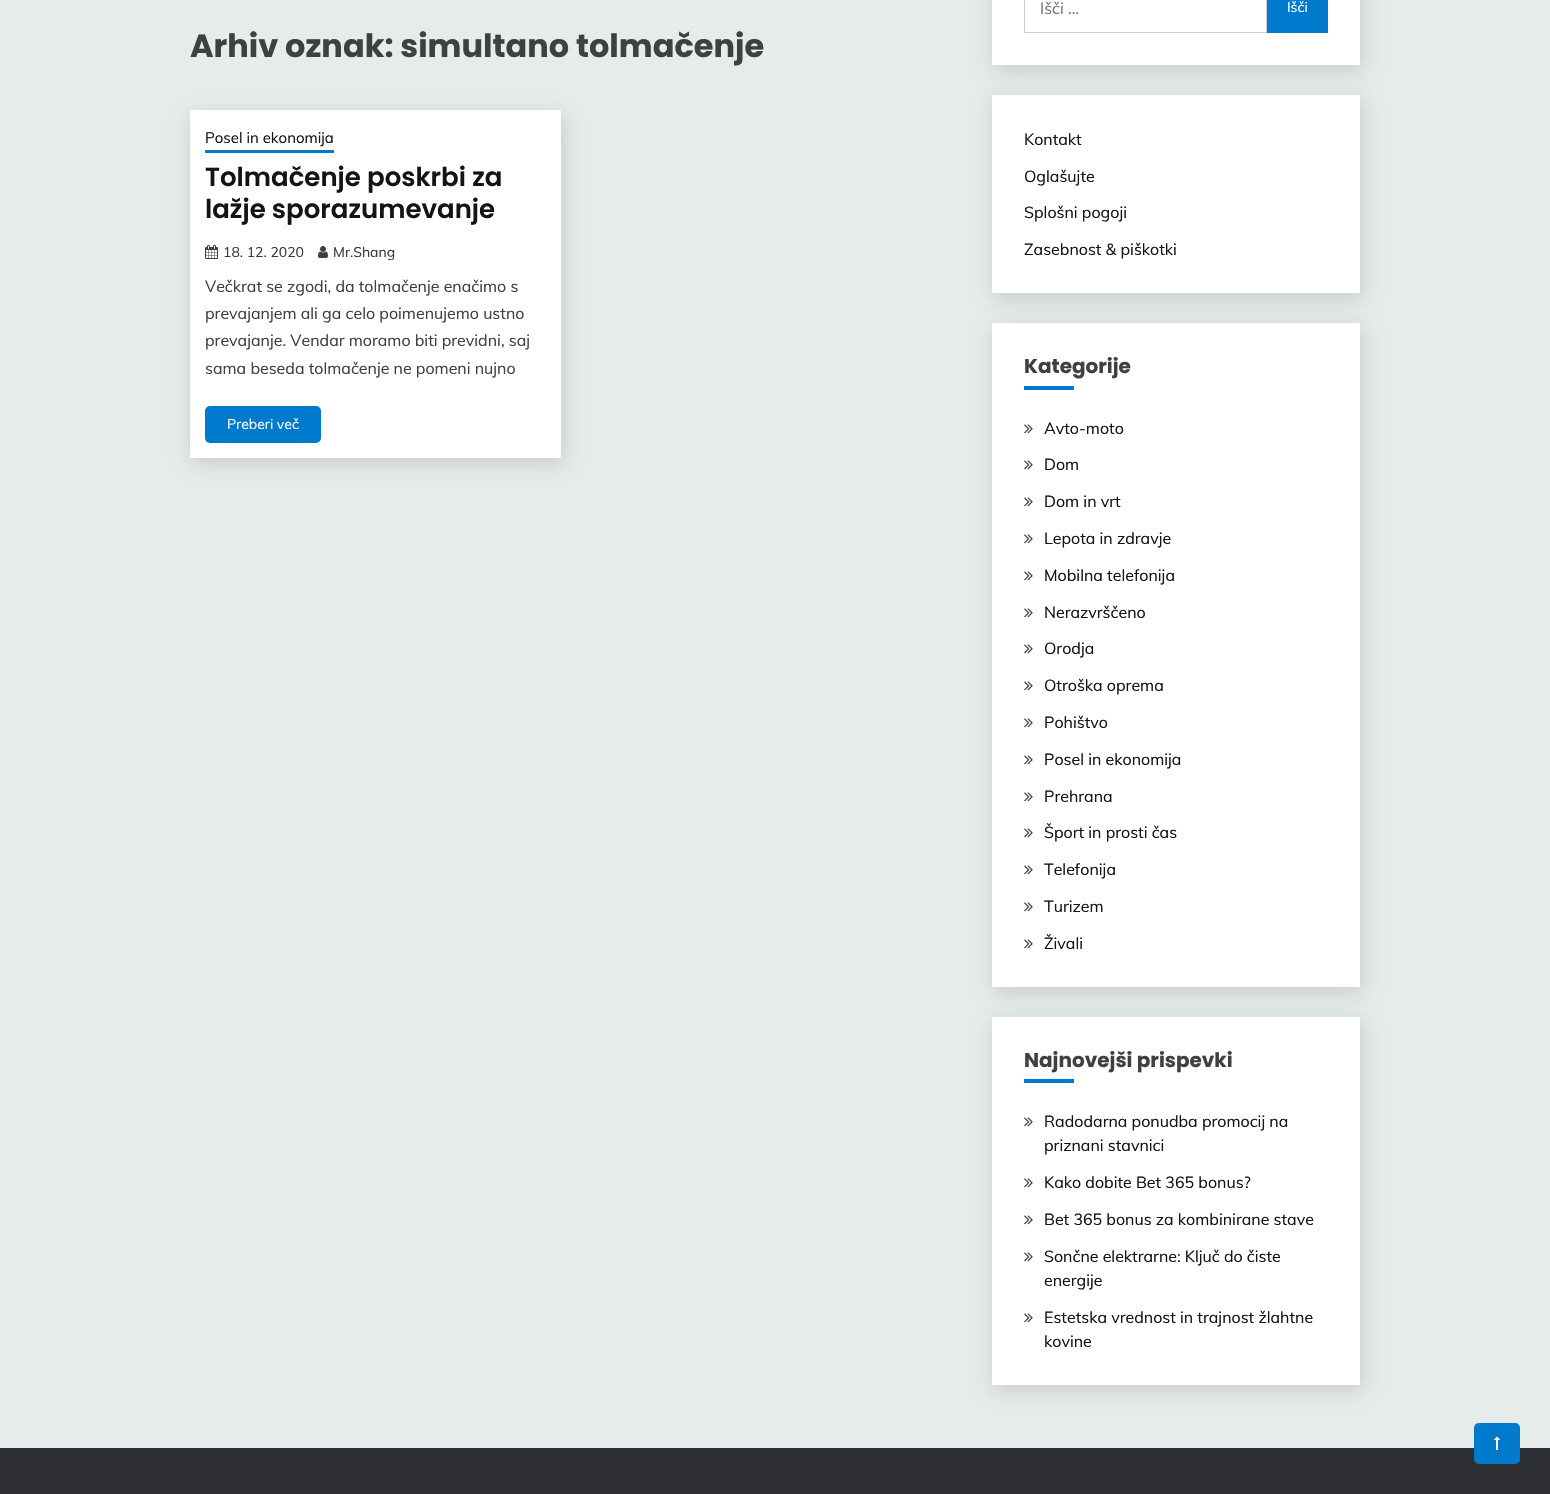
#include "include/core/SkBlurTypes.h"
#include "include/core/SkCanvas.h"
#include "include/core/SkData.h"
#include "include/core/SkFont.h"
#include "include/core/SkFontMgr.h"
#include "include/core/SkImage.h"
#include "include/core/SkMaskFilter.h"
#include "include/core/SkPaint.h"
#include "include/core/SkPathBuilder.h"
#include "include/core/SkTextBlob.h"
#include "include/effects/SkDashPathEffect.h"
#include "include/effects/SkGradientShader.h"
#include "include/utils/SkParsePath.h"

extern sk_sp<SkFontMgr> fontMgr;

void draw(SkCanvas* canvas) {
  SkPaint p;
  p.setAntiAlias(true);
  canvas->clear(SkColorSetRGB(229, 236, 233));
  p.setColor(SkColorSetARGB(36, 0, 0, 0));
  p.setMaskFilter(SkMaskFilter::MakeBlur(kNormal_SkBlurStyle, 10));
  canvas->drawRect(SkRect::MakeLTRB(192, 115, 563, 463), p);
  p.setMaskFilter(nullptr);
  p.setColor(SK_ColorWHITE);
  canvas->drawRect(SkRect::MakeLTRB(190, 110, 561, 458), p);
  p.setColor(SkColorSetRGB(0, 122, 204));
  canvas->drawRect(SkRect::MakeLTRB(205, 150, 334, 153), p);
  canvas->drawImageRect(SkImages::DeferredFromEncodedData(SkData::MakeFromFileName("images/1.png")), SkRect::MakeLTRB(205, 245, 218, 259), SkSamplingOptions());
  canvas->drawImageRect(SkImages::DeferredFromEncodedData(SkData::MakeFromFileName("images/2.png")), SkRect::MakeLTRB(318, 246, 328, 258), SkSamplingOptions());
  canvas->drawRoundRect(SkRect::MakeLTRB(205, 406, 321, 443), 5, 5, p);
  p.setColor(SkColorSetARGB(36, 0, 0, 0));
  p.setMaskFilter(SkMaskFilter::MakeBlur(kNormal_SkBlurStyle, 10));
  canvas->drawRect(SkRect::MakeLTRB(994, -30, 1362, 70), p);
  p.setMaskFilter(nullptr);
  p.setColor(SK_ColorWHITE);
  canvas->drawRect(SkRect::MakeLTRB(992, 0, 1360, 65), p);
  p.setStyle(SkPaint::kStroke_Style);
  p.setStrokeWidth(1);
  p.setColor(SkColorSetRGB(204, 204, 204));
  canvas->drawRect(SkRect::MakeLTRB(1024.5f, -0.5f, 1266.5f, 32.5f), p);
  p.setStyle(SkPaint::kFill_Style);
  p.setColor(SkColorSetRGB(0, 122, 204));
  canvas->drawRect(SkRect::MakeLTRB(1267, 0, 1328, 33), p);
  p.setColor(SkColorSetARGB(36, 0, 0, 0));
  p.setMaskFilter(SkMaskFilter::MakeBlur(kNormal_SkBlurStyle, 10));
  canvas->drawRect(SkRect::MakeLTRB(994, 100, 1362, 298), p);
  p.setMaskFilter(nullptr);
  p.setColor(SK_ColorWHITE);
  canvas->drawRect(SkRect::MakeLTRB(992, 95, 1360, 293), p);
  p.setColor(SkColorSetARGB(36, 0, 0, 0));
  p.setMaskFilter(SkMaskFilter::MakeBlur(kNormal_SkBlurStyle, 10));
  canvas->drawRect(SkRect::MakeLTRB(994, 328, 1362, 992), p);
  p.setMaskFilter(nullptr);
  p.setColor(SK_ColorWHITE);
  canvas->drawRect(SkRect::MakeLTRB(992, 323, 1360, 987), p);
  p.setColor(SkColorSetRGB(0, 122, 204));
  canvas->drawRect(SkRect::MakeLTRB(1024, 386, 1074, 390), p);
  canvas->drawImageRect(SkImages::DeferredFromEncodedData(SkData::MakeFromFileName("images/3.png")), SkRect::MakeLTRB(1024, 424, 1033, 434), SkSamplingOptions());
  canvas->drawImageRect(SkImages::DeferredFromEncodedData(SkData::MakeFromFileName("images/3.png")), SkRect::MakeLTRB(1024, 460, 1033, 470), SkSamplingOptions());
  canvas->drawImageRect(SkImages::DeferredFromEncodedData(SkData::MakeFromFileName("images/3.png")), SkRect::MakeLTRB(1024, 497, 1033, 507), SkSamplingOptions());
  canvas->drawImageRect(SkImages::DeferredFromEncodedData(SkData::MakeFromFileName("images/3.png")), SkRect::MakeLTRB(1024, 534, 1033, 544), SkSamplingOptions());
  canvas->drawImageRect(SkImages::DeferredFromEncodedData(SkData::MakeFromFileName("images/3.png")), SkRect::MakeLTRB(1024, 571, 1033, 581), SkSamplingOptions());
  canvas->drawImageRect(SkImages::DeferredFromEncodedData(SkData::MakeFromFileName("images/3.png")), SkRect::MakeLTRB(1024, 608, 1033, 618), SkSamplingOptions());
  canvas->drawImageRect(SkImages::DeferredFromEncodedData(SkData::MakeFromFileName("images/3.png")), SkRect::MakeLTRB(1024, 644, 1033, 654), SkSamplingOptions());
  canvas->drawImageRect(SkImages::DeferredFromEncodedData(SkData::MakeFromFileName("images/3.png")), SkRect::MakeLTRB(1024, 681, 1033, 691), SkSamplingOptions());
  canvas->drawImageRect(SkImages::DeferredFromEncodedData(SkData::MakeFromFileName("images/3.png")), SkRect::MakeLTRB(1024, 718, 1033, 728), SkSamplingOptions());
  canvas->drawImageRect(SkImages::DeferredFromEncodedData(SkData::MakeFromFileName("images/3.png")), SkRect::MakeLTRB(1024, 755, 1033, 765), SkSamplingOptions());
  canvas->drawImageRect(SkImages::DeferredFromEncodedData(SkData::MakeFromFileName("images/3.png")), SkRect::MakeLTRB(1024, 792, 1033, 802), SkSamplingOptions());
  canvas->drawImageRect(SkImages::DeferredFromEncodedData(SkData::MakeFromFileName("images/3.png")), SkRect::MakeLTRB(1024, 828, 1033, 838), SkSamplingOptions());
  canvas->drawImageRect(SkImages::DeferredFromEncodedData(SkData::MakeFromFileName("images/3.png")), SkRect::MakeLTRB(1024, 865, 1033, 875), SkSamplingOptions());
  canvas->drawImageRect(SkImages::DeferredFromEncodedData(SkData::MakeFromFileName("images/3.png")), SkRect::MakeLTRB(1024, 902, 1033, 912), SkSamplingOptions());
  canvas->drawImageRect(SkImages::DeferredFromEncodedData(SkData::MakeFromFileName("images/3.png")), SkRect::MakeLTRB(1024, 939, 1033, 949), SkSamplingOptions());
  p.setColor(SkColorSetARGB(36, 0, 0, 0));
  p.setMaskFilter(SkMaskFilter::MakeBlur(kNormal_SkBlurStyle, 10));
  canvas->drawRect(SkRect::MakeLTRB(994, 1022, 1362, 1390), p);
  p.setMaskFilter(nullptr);
  p.setColor(SK_ColorWHITE);
  canvas->drawRect(SkRect::MakeLTRB(992, 1017, 1360, 1385), p);
  p.setColor(SkColorSetRGB(0, 122, 204));
  canvas->drawRect(SkRect::MakeLTRB(1024, 1079, 1074, 1083), p);
  canvas->drawImageRect(SkImages::DeferredFromEncodedData(SkData::MakeFromFileName("images/3.png")), SkRect::MakeLTRB(1024, 1117, 1033, 1127), SkSamplingOptions());
  canvas->drawImageRect(SkImages::DeferredFromEncodedData(SkData::MakeFromFileName("images/3.png")), SkRect::MakeLTRB(1024, 1178, 1033, 1188), SkSamplingOptions());
  canvas->drawImageRect(SkImages::DeferredFromEncodedData(SkData::MakeFromFileName("images/3.png")), SkRect::MakeLTRB(1024, 1215, 1033, 1225), SkSamplingOptions());
  canvas->drawImageRect(SkImages::DeferredFromEncodedData(SkData::MakeFromFileName("images/3.png")), SkRect::MakeLTRB(1024, 1252, 1033, 1262), SkSamplingOptions());
  canvas->drawImageRect(SkImages::DeferredFromEncodedData(SkData::MakeFromFileName("images/3.png")), SkRect::MakeLTRB(1024, 1313, 1033, 1323), SkSamplingOptions());
  p.setColor(SkColorSetRGB(46, 46, 53));
  canvas->drawRect(SkRect::MakeLTRB(0, 1448, 1550, 1494), p);
  p.setColor(SkColorSetRGB(0, 122, 204));
  canvas->drawRoundRect(SkRect::MakeLTRB(1474, 1423, 1520, 1464), 5, 5, p);
  canvas->drawImageRect(SkImages::DeferredFromEncodedData(SkData::MakeFromFileName("images/4.png")), SkRect::MakeLTRB(1494, 1436, 1500, 1450), SkSamplingOptions());
  SkFont font1(fontMgr->matchFamilyStyle("Poppins", SkFontStyle::Bold()), 32);
  font1.setSubpixel(true);
  p.setColor(SkColorSetRGB(64, 64, 64));
  canvas->drawString("Arhiv oznak: simultano tolmačenje", 190, 57, font1, p);
  SkFont font2(fontMgr->matchFamilyStyle("Muli", SkFontStyle::Normal()), 15);
  font2.setSubpixel(true);
  p.setColor(SkColorSetRGB(20, 20, 19));
  canvas->drawString("Posel in ekonomija", 205, 143, font2, p);
  SkFont font3(fontMgr->matchFamilyStyle("Poppins", SkFontStyle(600, SkFontStyle::kNormal_Width, SkFontStyle::kUpright_Slant)), 26);
  font3.setSubpixel(true);
  canvas->drawString("Tolmačenje poskrbi za", 205, 186, font3, p);
  canvas->drawString("lažje sporazumevanje", 205, 218, font3, p);
  SkFont font4(fontMgr->matchFamilyStyle("Muli", SkFontStyle::Normal()), 14);
  font4.setSubpixel(true);
  p.setColor(SkColorSetRGB(55, 55, 63));
  canvas->drawString("18. 12. 2020", 223, 257, font4, p);
  canvas->drawString("Mr.Shang", 333, 257, font4, p);
  SkFont font5(fontMgr->matchFamilyStyle("Muli", SkFontStyle::Normal()), 16);
  font5.setSubpixel(true);
  p.setColor(SkColorSetRGB(64, 64, 64));
  canvas->drawString("Večkrat se zgodi, da tolmačenje enačimo s", 205, 292, font5, p);
  canvas->drawString("prevajanjem ali ga celo poimenujemo ustno", 205, 319, font5, p);
  canvas->drawString("prevajanje. Vendar moramo biti previdni, saj", 205, 346, font5, p);
  canvas->drawString("sama beseda tolmačenje ne pomeni nujno", 205, 374, font5, p);
  p.setColor(SK_ColorWHITE);
  canvas->drawString("Preberi več", 227, 429, font4, p);
  p.setColor(SkColorSetRGB(117, 117, 117));
  canvas->drawString("Išči …", 1040, 14, font5, p);
  p.setColor(SK_ColorWHITE);
  canvas->drawString("Išči", 1287, 12, font4, p);
  p.setColor(SkColorSetRGB(20, 20, 19));
  canvas->drawString("Kontakt", 1024, 145, font5, p);
  canvas->drawString("Oglašujte", 1024, 182, font5, p);
  canvas->drawString("Splošni pogoji", 1024, 218, font5, p);
  canvas->drawString("Zasebnost & piškotki", 1024, 255, font5, p);
  SkFont font6(fontMgr->matchFamilyStyle("Poppins", SkFontStyle::Bold()), 20);
  font6.setSubpixel(true);
  p.setColor(SkColorSetRGB(64, 64, 64));
  canvas->drawString("Kategorije", 1024, 373, font6, p);
  p.setColor(SkColorSetRGB(20, 20, 19));
  canvas->drawString("Avto-moto", 1044, 434, font5, p);
  canvas->drawString("Dom", 1044, 470, font5, p);
  canvas->drawString("Dom in vrt", 1044, 507, font5, p);
  canvas->drawString("Lepota in zdravje", 1044, 544, font5, p);
  canvas->drawString("Mobilna telefonija", 1044, 581, font5, p);
  canvas->drawString("Nerazvrščeno", 1044, 618, font5, p);
  canvas->drawString("Orodja", 1044, 654, font5, p);
  canvas->drawString("Otroška oprema", 1044, 691, font5, p);
  canvas->drawString("Pohištvo", 1044, 728, font5, p);
  canvas->drawString("Posel in ekonomija", 1044, 765, font5, p);
  canvas->drawString("Prehrana", 1044, 802, font5, p);
  canvas->drawString("Šport in prosti čas", 1044, 838, font5, p);
  canvas->drawString("Telefonija", 1044, 875, font5, p);
  canvas->drawString("Turizem", 1044, 912, font5, p);
  canvas->drawString("Živali", 1044, 949, font5, p);
  p.setColor(SkColorSetRGB(64, 64, 64));
  canvas->drawString("Najnovejši prispevki", 1024, 1067, font6, p);
  p.setColor(SkColorSetRGB(20, 20, 19));
  canvas->drawString("Radodarna ponudba promocij na", 1044, 1127, font5, p);
  canvas->drawString("priznani stavnici", 1044, 1151, font5, p);
  canvas->drawString("Kako dobite Bet 365 bonus?", 1044, 1188, font5, p);
  canvas->drawString("Bet 365 bonus za kombinirane stave", 1044, 1225, font5, p);
  canvas->drawString("Sončne elektrarne: Ključ do čiste", 1044, 1262, font5, p);
  canvas->drawString("energije", 1044, 1286, font5, p);
  canvas->drawString("Estetska vrednost in trajnost žlahtne", 1044, 1323, font5, p);
  canvas->drawString("kovine", 1044, 1347, font5, p);
}
